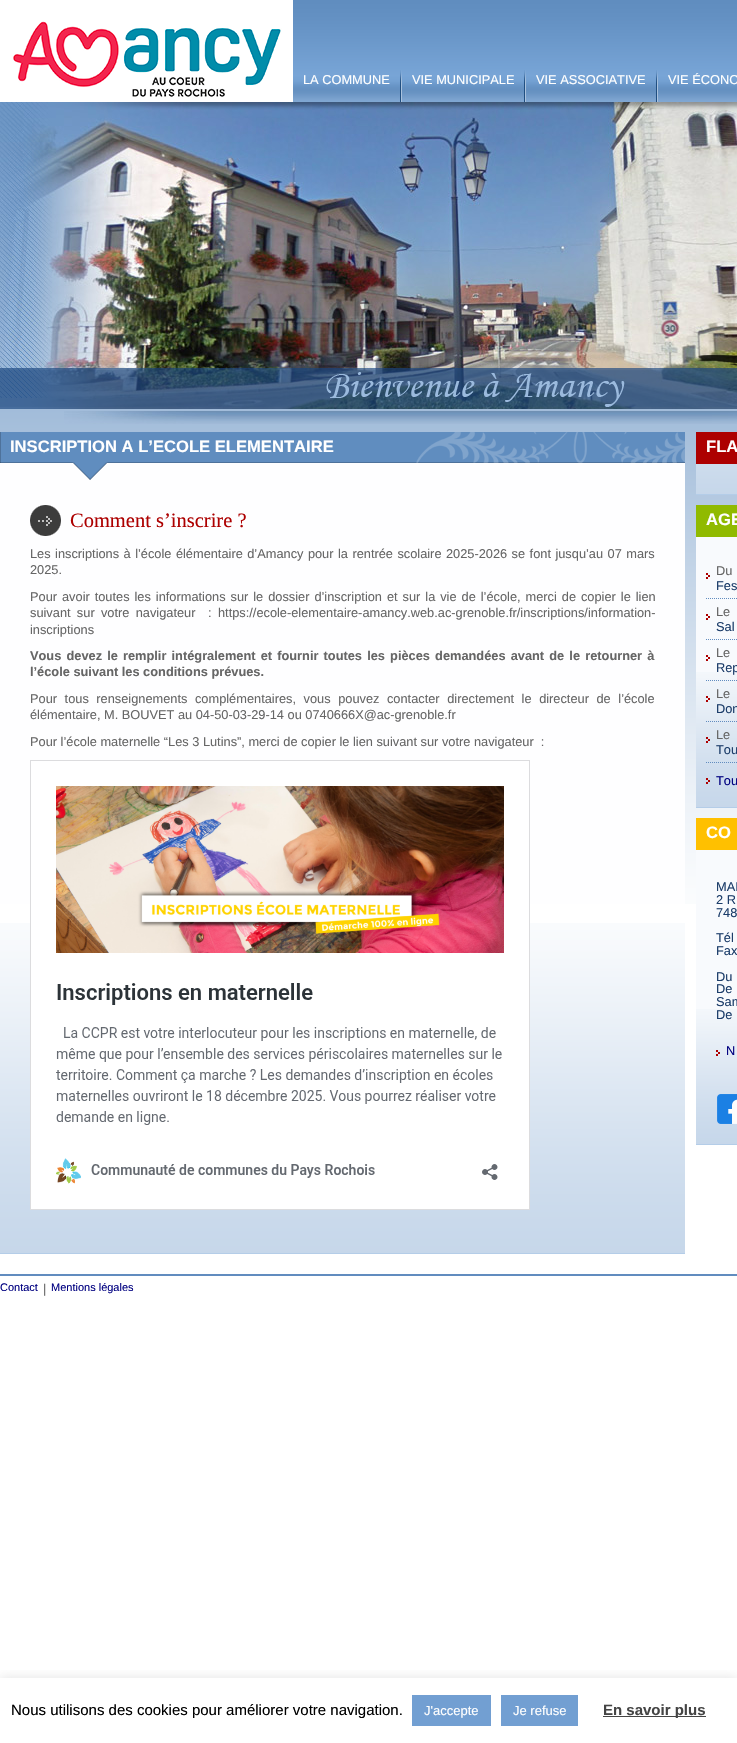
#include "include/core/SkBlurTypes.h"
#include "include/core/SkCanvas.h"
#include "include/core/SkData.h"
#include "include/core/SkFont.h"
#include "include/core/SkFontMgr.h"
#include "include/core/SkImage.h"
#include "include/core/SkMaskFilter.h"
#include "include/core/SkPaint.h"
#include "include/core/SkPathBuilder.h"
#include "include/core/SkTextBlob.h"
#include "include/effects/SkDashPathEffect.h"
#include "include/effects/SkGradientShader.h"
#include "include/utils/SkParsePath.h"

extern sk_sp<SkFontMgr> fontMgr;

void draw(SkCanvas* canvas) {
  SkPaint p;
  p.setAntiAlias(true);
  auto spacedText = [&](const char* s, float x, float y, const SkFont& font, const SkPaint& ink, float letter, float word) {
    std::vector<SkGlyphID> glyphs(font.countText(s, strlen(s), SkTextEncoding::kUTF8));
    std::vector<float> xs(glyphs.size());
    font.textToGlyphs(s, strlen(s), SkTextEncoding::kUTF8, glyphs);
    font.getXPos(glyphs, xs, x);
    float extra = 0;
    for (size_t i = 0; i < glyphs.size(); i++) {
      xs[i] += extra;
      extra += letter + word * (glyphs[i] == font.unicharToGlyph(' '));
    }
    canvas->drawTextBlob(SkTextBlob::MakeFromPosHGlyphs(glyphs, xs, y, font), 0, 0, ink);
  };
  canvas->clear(SK_ColorWHITE);
  canvas->drawImageRect(SkImages::DeferredFromEncodedData(SkData::MakeFromFileName("images/1.png")), SkRect::MakeLTRB(0, 0, 737, 904), SkSamplingOptions());
  canvas->drawImageRect(SkImages::DeferredFromEncodedData(SkData::MakeFromFileName("images/2.png")), SkRect::MakeLTRB(64, 411, 737, 424), SkSamplingOptions());
  canvas->drawImageRect(SkImages::DeferredFromEncodedData(SkData::MakeFromFileName("images/3.png")), SkRect::MakeLTRB(0, 0, 293, 102), SkSamplingOptions());
  canvas->drawImageRect(SkImages::DeferredFromEncodedData(SkData::MakeFromFileName("images/4.png")), SkRect::MakeLTRB(400, 70, 402, 102), SkSamplingOptions());
  canvas->drawImageRect(SkImages::DeferredFromEncodedData(SkData::MakeFromFileName("images/4.png")), SkRect::MakeLTRB(524, 70, 526, 102), SkSamplingOptions());
  canvas->drawImageRect(SkImages::DeferredFromEncodedData(SkData::MakeFromFileName("images/4.png")), SkRect::MakeLTRB(656, 70, 658, 102), SkSamplingOptions());
  canvas->drawImageRect(SkImages::DeferredFromEncodedData(SkData::MakeFromFileName("images/5.png")), SkRect::MakeLTRB(0, 102, 737, 409), SkSamplingOptions());
  canvas->drawImageRect(SkImages::DeferredFromEncodedData(SkData::MakeFromFileName("images/6.png")), SkRect::MakeLTRB(0, 102, 737, 409), SkSamplingOptions());
  p.setColor(SkColorSetRGB(254, 254, 255));
  canvas->drawRect(SkRect::MakeLTRB(0, 463, 685, 904), p);
  canvas->drawImageRect(SkImages::DeferredFromEncodedData(SkData::MakeFromFileName("images/7.png")), SkRect::MakeLTRB(0, 923, 685, 1254), SkSamplingOptions());
  canvas->drawImageRect(SkImages::DeferredFromEncodedData(SkData::MakeFromFileName("images/8.png")), SkRect::MakeLTRB(0, 432, 685, 480), SkSamplingOptions());
  canvas->drawImageRect(SkImages::DeferredFromEncodedData(SkData::MakeFromFileName("images/9.png")), SkRect::MakeLTRB(30, 505, 61, 536), SkSamplingOptions());
  canvas->drawImageRect(SkImages::DeferredFromEncodedData(SkData::MakeFromFileName("images/10.png")), SkRect::MakeLTRB(30, 760, 530, 1210), SkSamplingOptions());
  canvas->drawImageRect(SkImages::DeferredFromEncodedData(SkData::MakeFromFileName("images/11.png")), SkRect::MakeLTRB(696, 464, 737, 495), SkSamplingOptions());
  p.setColor(SkColorSetRGB(173, 0, 0));
  canvas->drawRect(SkRect::MakeLTRB(696, 432, 737, 464), p);
  p.setColor(SkColorSetRGB(248, 250, 253));
  canvas->drawRect(SkRect::MakeLTRB(696, 537, 737, 672), p);
  canvas->drawImageRect(SkImages::DeferredFromEncodedData(SkData::MakeFromFileName("images/12.png")), SkRect::MakeLTRB(696, 672, 737, 808), SkSamplingOptions());
  p.setColor(SkColorSetRGB(144, 186, 0));
  canvas->drawRect(SkRect::MakeLTRB(696, 505, 737, 537), p);
  canvas->drawImageRect(SkImages::DeferredFromEncodedData(SkData::MakeFromFileName("images/13.png")), SkRect::MakeLTRB(706, 573, 710, 579), SkSamplingOptions());
  p.setStyle(SkPaint::kStroke_Style);
  p.setStrokeWidth(1);
  p.setColor(SkColorSetRGB(97, 140, 191));
  p.setPathEffect(SkDashPathEffect::Make({{1, 1}}, 0));
  canvas->drawPath(SkPathBuilder().moveTo(706, 598.5f).lineTo(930, 598.5f).detach(), p);
  p.setPathEffect(nullptr);
  canvas->drawImageRect(SkImages::DeferredFromEncodedData(SkData::MakeFromFileName("images/13.png")), SkRect::MakeLTRB(706, 614, 710, 620), SkSamplingOptions());
  p.setPathEffect(SkDashPathEffect::Make({{1, 1}}, 0));
  canvas->drawPath(SkPathBuilder().moveTo(706, 639.5f).lineTo(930, 639.5f).detach(), p);
  p.setPathEffect(nullptr);
  canvas->drawImageRect(SkImages::DeferredFromEncodedData(SkData::MakeFromFileName("images/13.png")), SkRect::MakeLTRB(706, 655, 710, 661), SkSamplingOptions());
  p.setPathEffect(SkDashPathEffect::Make({{1, 1}}, 0));
  canvas->drawPath(SkPathBuilder().moveTo(706, 680.5f).lineTo(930, 680.5f).detach(), p);
  p.setPathEffect(nullptr);
  canvas->drawImageRect(SkImages::DeferredFromEncodedData(SkData::MakeFromFileName("images/14.png")), SkRect::MakeLTRB(706, 696, 710, 702), SkSamplingOptions());
  p.setPathEffect(SkDashPathEffect::Make({{1, 1}}, 0));
  canvas->drawPath(SkPathBuilder().moveTo(706, 721.5f).lineTo(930, 721.5f).detach(), p);
  p.setPathEffect(nullptr);
  canvas->drawImageRect(SkImages::DeferredFromEncodedData(SkData::MakeFromFileName("images/15.png")), SkRect::MakeLTRB(706, 737, 710, 743), SkSamplingOptions());
  p.setPathEffect(SkDashPathEffect::Make({{1, 1}}, 0));
  canvas->drawPath(SkPathBuilder().moveTo(706, 762.5f).lineTo(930, 762.5f).detach(), p);
  p.setPathEffect(nullptr);
  canvas->drawImageRect(SkImages::DeferredFromEncodedData(SkData::MakeFromFileName("images/16.png")), SkRect::MakeLTRB(706, 778, 710, 784), SkSamplingOptions());
  p.setStyle(SkPaint::kFill_Style);
  p.setColor(SkColorSetRGB(248, 250, 253));
  canvas->drawRect(SkRect::MakeLTRB(696, 850, 737, 1009), p);
  canvas->drawImageRect(SkImages::DeferredFromEncodedData(SkData::MakeFromFileName("images/12.png")), SkRect::MakeLTRB(696, 1009, 737, 1145), SkSamplingOptions());
  p.setColor(SkColorSetRGB(255, 192, 0));
  canvas->drawRect(SkRect::MakeLTRB(696, 818, 737, 850), p);
  canvas->drawImageRect(SkImages::DeferredFromEncodedData(SkData::MakeFromFileName("images/17.png")), SkRect::MakeLTRB(716, 1050, 720, 1056), SkSamplingOptions());
  canvas->drawImageRect(SkImages::DeferredFromEncodedData(SkData::MakeFromFileName("images/18.png")), SkRect::MakeLTRB(717, 1094, 737, 1124), SkSamplingOptions());
  p.setColor(SkColorSetRGB(97, 140, 191));
  canvas->drawRect(SkRect::MakeLTRB(0, 1274, 737, 1276), p);
  canvas->save();
  canvas->clipRect(SkRect::MakeLTRB(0, 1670, 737, 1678));
  p.setColor(SkColorSetARGB(77, 172, 171, 171));
  p.setMaskFilter(SkMaskFilter::MakeBlur(kNormal_SkBlurStyle, 5));
  canvas->drawRect(SkRect::MakeLTRB(0, 1677, 737, 1742), p);
  p.setMaskFilter(nullptr);
  canvas->restore();
  p.setColor(SkColorSetRGB(114, 159, 210));
  canvas->drawRect(SkRect::MakeLTRB(412, 1695, 491, 1726), p);
  canvas->drawRect(SkRect::MakeLTRB(501, 1695, 578, 1726), p);
  p.setColor(SkColorSetRGB(68, 68, 68));
  canvas->drawRect(SkRect::MakeLTRB(603, 1716, 706, 1717), p);
  SkFont font1(fontMgr->matchFamilyStyle("Liberation Sans", SkFontStyle::Normal()), 12.8f);
  font1.setSubpixel(true);
  p.setColor(SK_ColorWHITE);
  canvas->drawString("LA COMMUNE", 303, 84, font1, p);
  canvas->drawString("VIE MUNICIPALE", 412, 84, font1, p);
  canvas->drawString("VIE ASSOCIATIVE", 536, 84, font1, p);
  canvas->drawString("VIE ÉCONO", 668, 84, font1, p);
  SkFont font2(fontMgr->matchFamilyStyle("Liberation Sans", SkFontStyle::Bold()), 16.6f);
  font2.setSubpixel(true);
  canvas->drawString("INSCRIPTION A L’ECOLE ELEMENTAIRE", 10, 452, font2, p);
  SkFont font3(fontMgr->matchFamilyStyle("Liberation Serif", SkFontStyle::Normal()), 20.5f);
  font3.setSubpixel(true);
  p.setColor(SkColorSetRGB(173, 0, 0));
  canvas->drawString("Comment s’inscrire ?", 70, 527, font3, p);
  p.setColor(SkColorSetRGB(102, 102, 102));
  spacedText("Les inscriptions à l’école élémentaire d’Amancy pour la rentrée scolaire 2025-2026 se font jusqu’au 07 mars", 30, 558, font1, p, 0, 0.9f);
  canvas->drawString("2025.", 30, 574, font1, p);
  spacedText("Pour avoir toutes les informations sur le dossier d’inscription et sur la vie de l’école, merci de copier le lien", 30, 601, font1, p, 0, 1.4f);
  spacedText("suivant sur votre navigateur  : https://ecole-elementaire-amancy.web.ac-grenoble.fr/inscriptions/information-", 30, 617, font1, p, 0, 2.75f);
  canvas->drawString("inscriptions", 30, 634, font1, p);
  SkFont font4(fontMgr->matchFamilyStyle("Liberation Sans", SkFontStyle::Bold()), 12.8f);
  font4.setSubpixel(true);
  spacedText("Vous devez le remplir intégralement et fournir toutes les pièces demandées avant de le retourner à", 30, 660, font4, p, 0, 1.6f);
  canvas->drawString("l’école suivant les conditions prévues.", 30, 676, font4, p);
  spacedText("Pour tous renseignements complémentaires, vous pouvez contacter directement le directeur de l’école", 30, 703, font1, p, 0, 4);
  canvas->drawString("élémentaire, M. BOUVET au 04-50-03-29-14 ou 0740666X@ac-grenoble.fr", 30, 719, font1, p);
  canvas->drawString("Pour l’école maternelle “Les 3 Lutins”, merci de copier le lien suivant sur votre navigateur  :", 30, 746, font1, p);
  p.setColor(SK_ColorWHITE);
  canvas->drawString("FLA", 706, 452, font2, p);
  canvas->drawString("AGE", 706, 525, font2, p);
  p.setColor(SkColorSetRGB(102, 102, 102));
  canvas->drawString("Du", 716, 575, font1, p);
  p.setColor(SkColorSetRGB(28, 61, 106));
  canvas->drawString("Fes", 716, 590, font1, p);
  p.setColor(SkColorSetRGB(102, 102, 102));
  canvas->drawString("Le", 716, 616, font1, p);
  p.setColor(SkColorSetRGB(28, 61, 106));
  canvas->drawString("Sal", 716, 631, font1, p);
  p.setColor(SkColorSetRGB(102, 102, 102));
  canvas->drawString("Le", 716, 657, font1, p);
  p.setColor(SkColorSetRGB(28, 61, 106));
  canvas->drawString("Rep", 716, 672, font1, p);
  p.setColor(SkColorSetRGB(102, 102, 102));
  canvas->drawString("Le", 716, 698, font1, p);
  p.setColor(SkColorSetRGB(28, 61, 106));
  canvas->drawString("Don", 716, 713, font1, p);
  p.setColor(SkColorSetRGB(102, 102, 102));
  canvas->drawString("Le", 716, 739, font1, p);
  p.setColor(SkColorSetRGB(28, 61, 106));
  canvas->drawString("Tou", 716, 754, font1, p);
  p.setColor(SkColorSetRGB(0, 0, 128));
  canvas->drawString("Tou", 716, 785, font1, p);
  p.setColor(SK_ColorWHITE);
  canvas->drawString("CO", 706, 838, font2, p);
  p.setColor(SkColorSetRGB(28, 61, 106));
  canvas->drawString("MAI", 716, 891, font1, p);
  canvas->drawString("2 R", 716, 904, font1, p);
  canvas->drawString("748", 716, 917, font1, p);
  canvas->drawString("Tél", 716, 942, font1, p);
  canvas->drawString("Fax", 716, 955, font1, p);
  canvas->drawString("Du", 716, 981, font1, p);
  canvas->drawString("De", 716, 993, font1, p);
  canvas->drawString("Sam", 716, 1006, font1, p);
  canvas->drawString("De", 716, 1019, font1, p);
  p.setColor(SkColorSetRGB(0, 0, 128));
  canvas->drawString("N", 726, 1055, font1, p);
  SkFont font5(fontMgr->matchFamilyStyle("Liberation Sans", SkFontStyle::Normal()), 11);
  font5.setSubpixel(true);
  canvas->drawString("Contact", 0, 1291, font5, p);
  p.setColor(SkColorSetRGB(102, 102, 102));
  canvas->drawString("|", 43, 1293, font1, p);
  p.setColor(SkColorSetRGB(0, 0, 128));
  canvas->drawString("Mentions légales", 51, 1291, font5, p);
  SkFont font6(fontMgr->matchFamilyStyle("Liberation Sans", SkFontStyle::Normal()), 15);
  font6.setSubpixel(true);
  p.setColor(SK_ColorBLACK);
  canvas->drawString("Nous utilisons des cookies pour améliorer votre navigation.", 11, 1715, font6, p);
  SkFont font7(fontMgr->matchFamilyStyle("Liberation Sans", SkFontStyle::Normal()), 13);
  font7.setSubpixel(true);
  p.setColor(SK_ColorWHITE);
  canvas->drawString("J'accepte", 424, 1715, font7, p);
  canvas->drawString("Je refuse", 513, 1715, font7, p);
  SkFont font8(fontMgr->matchFamilyStyle("Liberation Sans", SkFontStyle::Bold()), 15);
  font8.setSubpixel(true);
  p.setColor(SkColorSetRGB(68, 68, 68));
  canvas->drawString("En savoir plus", 603, 1715, font8, p);
}
